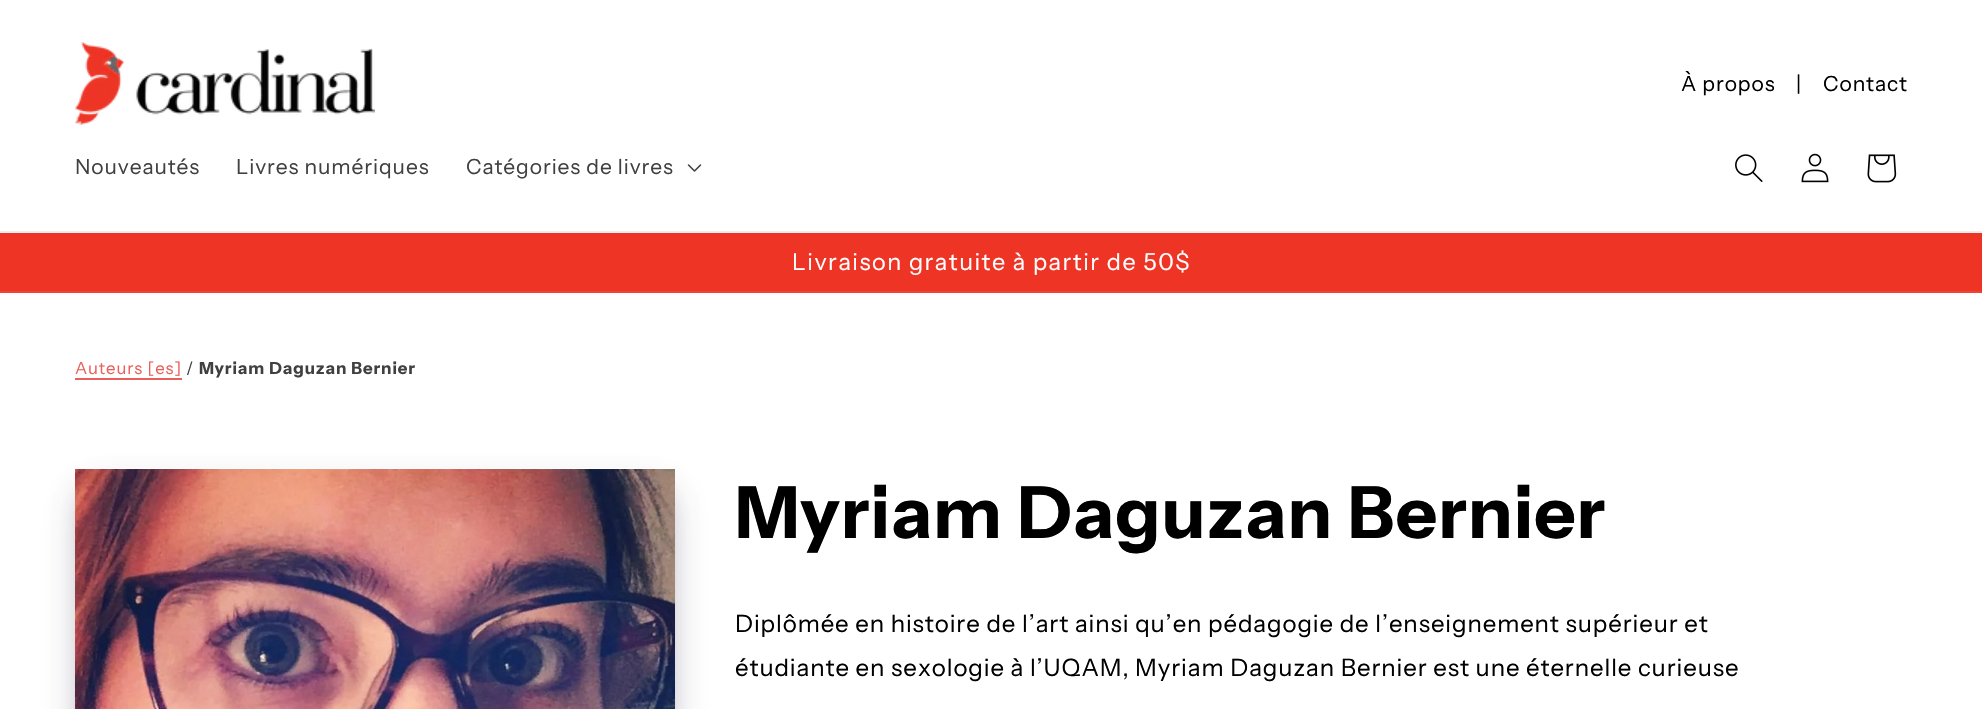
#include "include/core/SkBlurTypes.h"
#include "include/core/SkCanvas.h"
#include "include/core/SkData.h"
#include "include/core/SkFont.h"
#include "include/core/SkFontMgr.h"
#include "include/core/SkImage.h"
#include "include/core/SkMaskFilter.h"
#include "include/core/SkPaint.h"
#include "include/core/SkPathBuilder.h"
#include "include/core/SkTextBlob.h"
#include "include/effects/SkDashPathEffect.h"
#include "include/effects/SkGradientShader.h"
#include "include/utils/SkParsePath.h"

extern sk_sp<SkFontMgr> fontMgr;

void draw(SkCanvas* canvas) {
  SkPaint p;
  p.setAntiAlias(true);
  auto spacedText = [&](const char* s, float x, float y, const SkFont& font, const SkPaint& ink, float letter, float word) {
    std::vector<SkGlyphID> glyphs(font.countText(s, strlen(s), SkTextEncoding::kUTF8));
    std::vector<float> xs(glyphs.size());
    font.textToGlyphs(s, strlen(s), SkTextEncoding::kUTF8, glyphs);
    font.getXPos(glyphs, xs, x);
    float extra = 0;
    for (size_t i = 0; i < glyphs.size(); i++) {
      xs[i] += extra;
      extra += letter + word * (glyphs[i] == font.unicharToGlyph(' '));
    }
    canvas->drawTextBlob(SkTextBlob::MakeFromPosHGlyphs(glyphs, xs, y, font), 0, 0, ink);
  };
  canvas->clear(SK_ColorWHITE);
  p.setColor(SkColorSetRGB(237, 237, 237));
  canvas->drawRect(SkRect::MakeLTRB(0, 231, 1982, 233), p);
  canvas->drawImageRect(SkImages::DeferredFromEncodedData(SkData::MakeFromFileName("images/1.png")), SkRect::MakeLTRB(75, 42, 375, 125), SkSamplingOptions());
  canvas->drawImageRect(SkImages::DeferredFromEncodedData(SkData::MakeFromFileName("images/2.png")), SkRect::MakeLTRB(687, 164, 702, 172), SkSamplingOptions());
  canvas->drawImageRect(SkImages::DeferredFromEncodedData(SkData::MakeFromFileName("images/3.png")), SkRect::MakeLTRB(1735, 154, 1763, 182), SkSamplingOptions());
  canvas->drawImageRect(SkImages::DeferredFromEncodedData(SkData::MakeFromFileName("images/4.png")), SkRect::MakeLTRB(1801, 153, 1829, 183), SkSamplingOptions());
  canvas->drawImageRect(SkImages::DeferredFromEncodedData(SkData::MakeFromFileName("images/5.png")), SkRect::MakeLTRB(1867, 154, 1897, 183), SkSamplingOptions());
  p.setColor(SkColorSetRGB(238, 52, 37));
  canvas->drawRect(SkRect::MakeLTRB(0, 233, 1982, 291), p);
  p.setColor(SkColorSetRGB(239, 68, 54));
  canvas->drawRect(SkRect::MakeLTRB(0, 291, 1982, 293), p);
  p.setColor(SkColorSetRGB(232, 96, 89));
  canvas->drawRect(SkRect::MakeLTRB(75, 378, 182, 380), p);
  p.setColor(SkColorSetARGB(77, 0, 0, 0));
  p.setMaskFilter(SkMaskFilter::MakeBlur(kNormal_SkBlurStyle, 12));
  canvas->drawRect(SkRect::MakeLTRB(87, 492, 663, 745), p);
  p.setMaskFilter(nullptr);
  p.setColor(SkColorSetARGB(64, 50, 50, 93));
  p.setMaskFilter(SkMaskFilter::MakeBlur(kNormal_SkBlurStyle, 20));
  canvas->drawRect(SkRect::MakeLTRB(83, 495, 668, 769), p);
  p.setMaskFilter(nullptr);
  canvas->drawImageRect(SkImages::DeferredFromEncodedData(SkData::MakeFromFileName("images/6.png")), SkRect::MakeLTRB(75, 468, 675, 709), SkSamplingOptions());
  SkFont font1(fontMgr->matchFamilyStyle("Instrument Sans", SkFontStyle::Normal()), 21);
  font1.setSubpixel(true);
  p.setColor(SK_ColorBLACK);
  spacedText("À propos", 1681, 91, font1, p, 0.9f, 0);
  spacedText("|", 1796, 91, font1, p, 0.9f, 0);
  spacedText("Contact", 1823, 91, font1, p, 0.9f, 0);
  p.setColor(SkColorSetRGB(64, 64, 64));
  spacedText("Nouveautés", 75, 174, font1, p, 0.9f, 0);
  spacedText("Livres numériques", 236, 174, font1, p, 0.9f, 0);
  spacedText("Catégories de livres", 466, 174, font1, p, 0.9f, 0);
  SkFont font2(fontMgr->matchFamilyStyle("Instrument Sans", SkFontStyle::Normal()), 23.4f);
  font2.setSubpixel(true);
  p.setColor(SK_ColorWHITE);
  spacedText("Livraison gratuite à partir de 50$", 792, 270, font2, p, 1.5f, 0);
  SkFont font3(fontMgr->matchFamilyStyle("Instrument Sans", SkFontStyle::Normal()), 16.75f);
  font3.setSubpixel(true);
  p.setColor(SkColorSetRGB(232, 96, 89));
  spacedText("Auteurs [es]", 75, 374, font3, p, 0.9f, 0);
  p.setColor(SkColorSetRGB(64, 64, 64));
  spacedText("/", 186, 374, font3, p, 0.9f, 0);
  SkFont font4(fontMgr->matchFamilyStyle("Instrument Sans", SkFontStyle::Bold()), 16.75f);
  font4.setSubpixel(true);
  spacedText("Myriam Daguzan Bernier", 199, 374, font4, p, 0.9f, 0);
  SkFont font5(fontMgr->matchFamilyStyle("Instrument Sans", SkFontStyle::Bold()), 72);
  font5.setSubpixel(true);
  p.setColor(SK_ColorBLACK);
  spacedText("Myriam Daguzan Bernier", 735, 538, font5, p, 1.1f, 0);
  SkFont font6(fontMgr->matchFamilyStyle("Instrument Sans", SkFontStyle::Normal()), 24);
  font6.setSubpixel(true);
  spacedText("Diplômée en histoire de l’art ainsi qu’en pédagogie de l’enseignement supérieur et", 735, 632, font6, p, 0.9f, 0);
  spacedText("étudiante en sexologie à l’UQAM, Myriam Daguzan Bernier est une éternelle curieuse", 735, 676, font6, p, 0.9f, 0);
}
